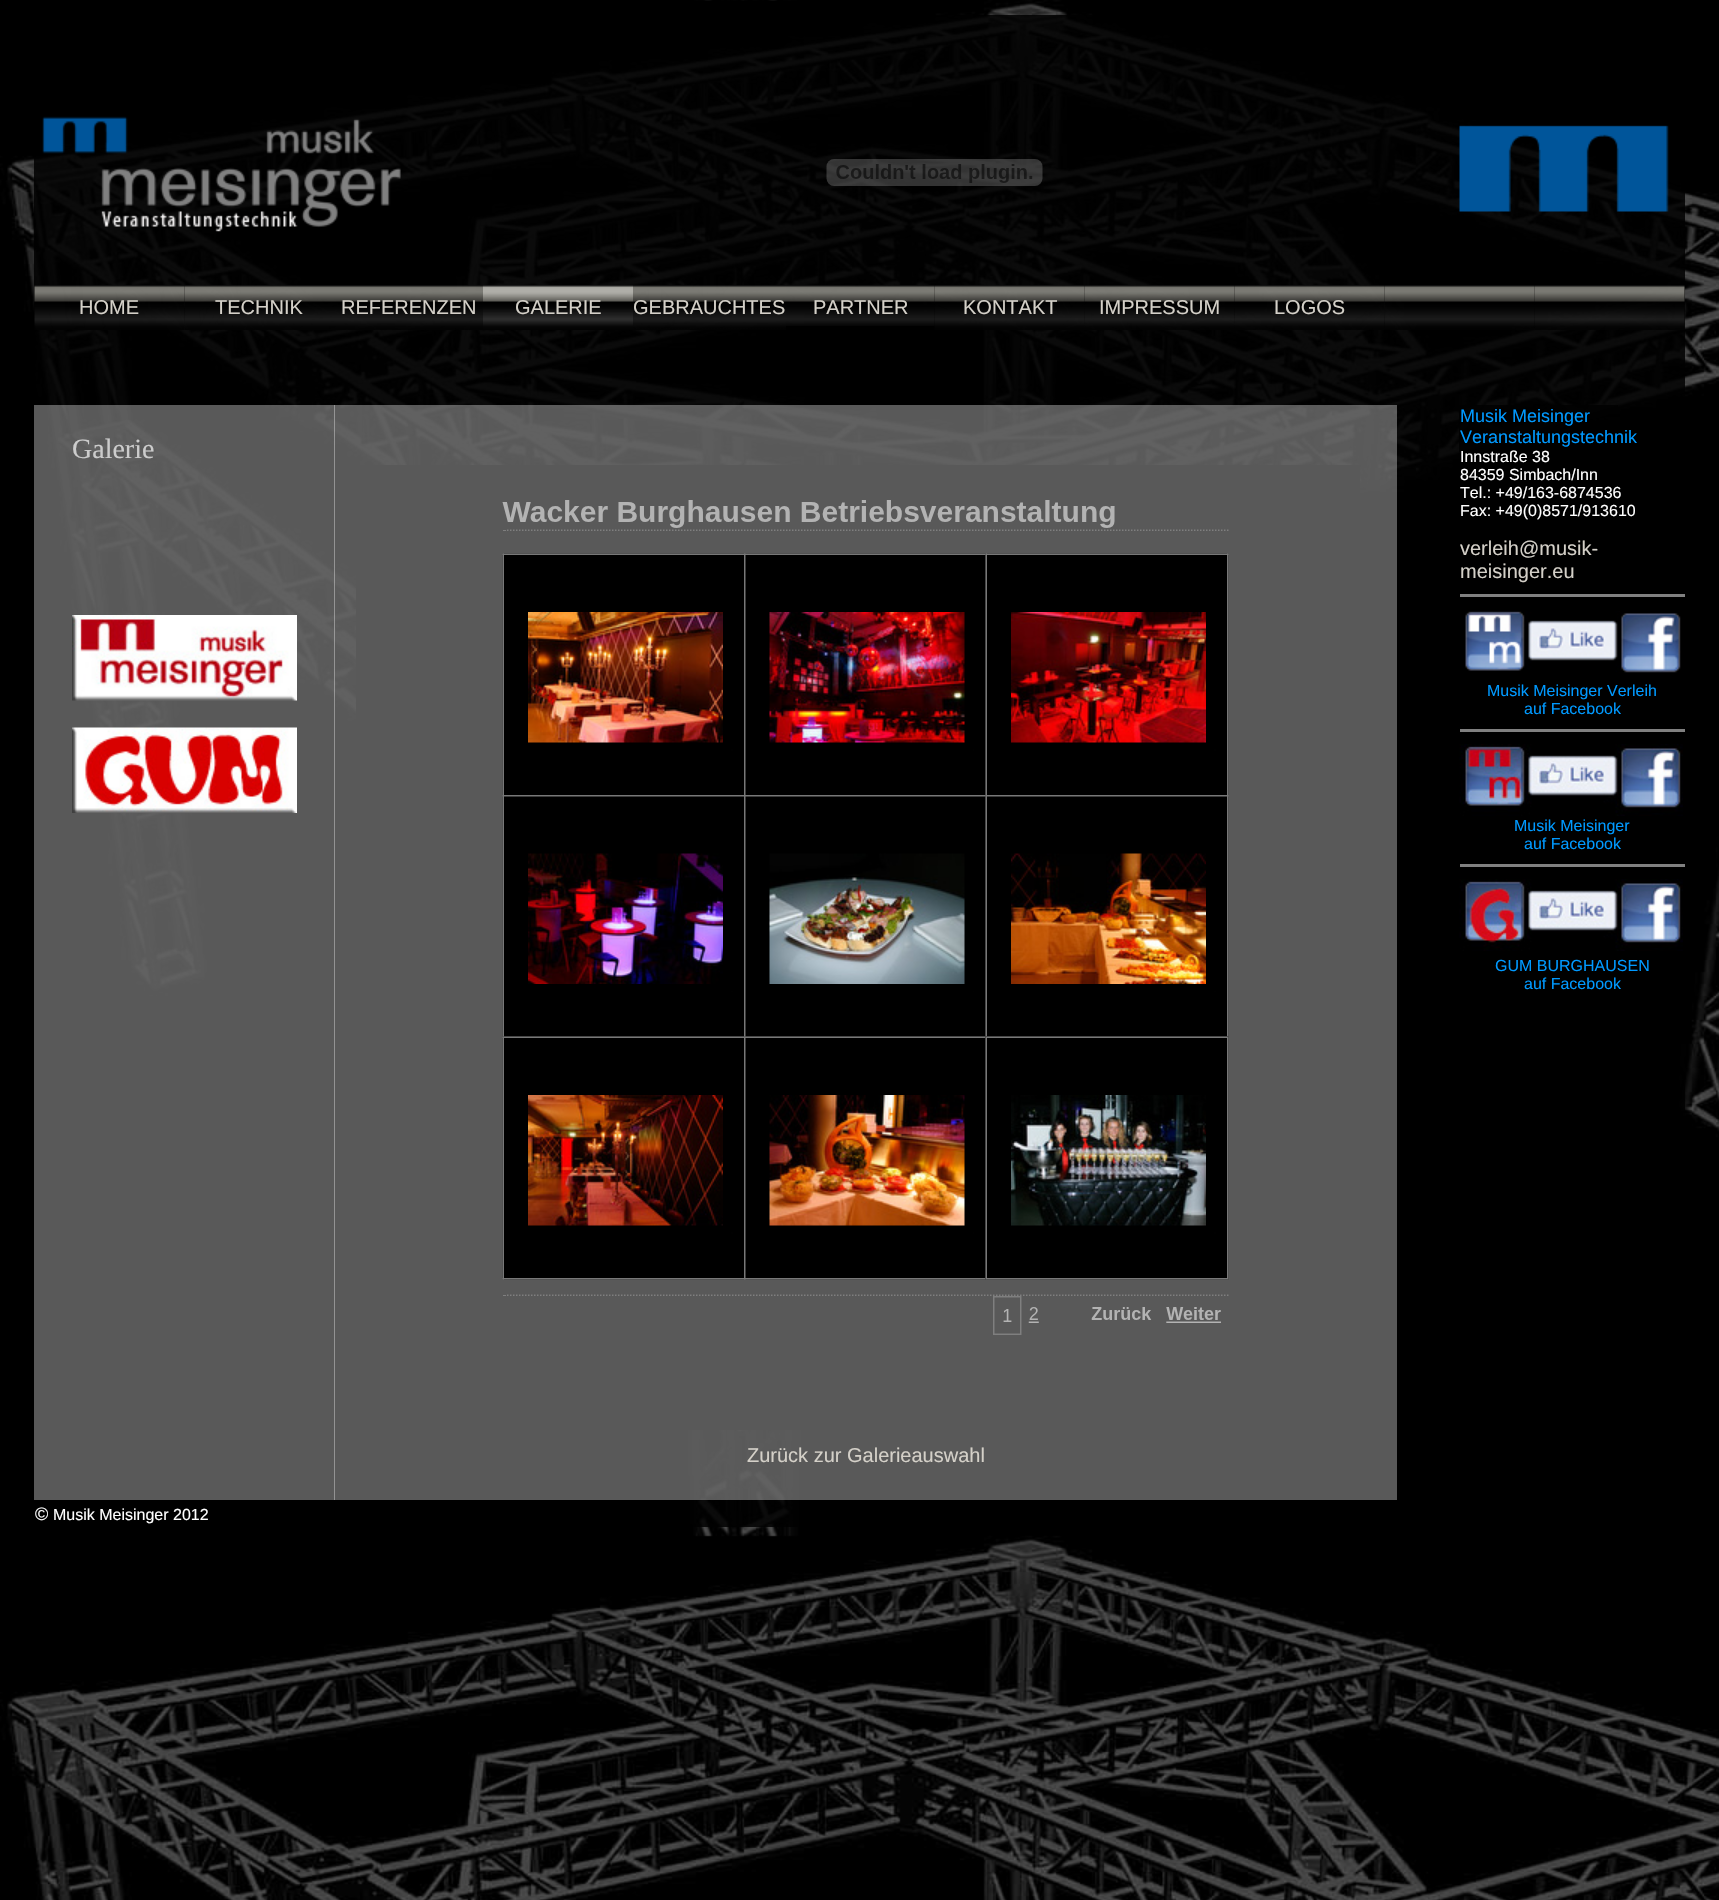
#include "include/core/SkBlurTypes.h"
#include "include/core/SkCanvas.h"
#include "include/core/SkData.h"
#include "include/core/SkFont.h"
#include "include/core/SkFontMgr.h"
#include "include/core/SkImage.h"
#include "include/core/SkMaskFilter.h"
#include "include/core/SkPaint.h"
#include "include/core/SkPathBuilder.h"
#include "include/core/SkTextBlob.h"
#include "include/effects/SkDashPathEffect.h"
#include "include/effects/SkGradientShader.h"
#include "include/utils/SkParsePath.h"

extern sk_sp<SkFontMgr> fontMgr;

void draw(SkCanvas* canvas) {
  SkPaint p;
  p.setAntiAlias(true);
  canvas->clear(SK_ColorWHITE);
  canvas->drawImageRect(SkImages::DeferredFromEncodedData(SkData::MakeFromFileName("images/1.png")), SkRect::MakeLTRB(0, 0, 1719, 1900), SkSamplingOptions());
  p.setColor(SkColorSetARGB(217, 0, 0, 0));
  canvas->drawRect(SkRect::MakeLTRB(34, 15, 1685, 1527), p);
  canvas->drawImageRect(SkImages::DeferredFromEncodedData(SkData::MakeFromFileName("images/2.png")), SkRect::MakeLTRB(42, 116, 401, 232), SkSamplingOptions());
  canvas->drawImageRect(SkImages::DeferredFromEncodedData(SkData::MakeFromFileName("images/3.png")), SkRect::MakeLTRB(826, 159, 1043, 186), SkSamplingOptions());
  canvas->drawImageRect(SkImages::DeferredFromEncodedData(SkData::MakeFromFileName("images/4.png")), SkRect::MakeLTRB(1459, 125, 1669, 212), SkSamplingOptions());
  canvas->drawImageRect(SkImages::DeferredFromEncodedData(SkData::MakeFromFileName("images/5.png")), SkRect::MakeLTRB(34, 285, 185, 330), SkSamplingOptions());
  canvas->drawImageRect(SkImages::DeferredFromEncodedData(SkData::MakeFromFileName("images/6.png")), SkRect::MakeLTRB(184, 285, 333, 330), SkSamplingOptions());
  canvas->drawImageRect(SkImages::DeferredFromEncodedData(SkData::MakeFromFileName("images/7.png")), SkRect::MakeLTRB(333, 285, 483, 330), SkSamplingOptions());
  canvas->drawImageRect(SkImages::DeferredFromEncodedData(SkData::MakeFromFileName("images/8.png")), SkRect::MakeLTRB(483, 285, 633, 330), SkSamplingOptions());
  canvas->drawImageRect(SkImages::DeferredFromEncodedData(SkData::MakeFromFileName("images/9.png")), SkRect::MakeLTRB(633, 285, 786, 330), SkSamplingOptions());
  canvas->drawImageRect(SkImages::DeferredFromEncodedData(SkData::MakeFromFileName("images/10.png")), SkRect::MakeLTRB(786, 285, 935, 326), SkSamplingOptions());
  canvas->drawImageRect(SkImages::DeferredFromEncodedData(SkData::MakeFromFileName("images/11.png")), SkRect::MakeLTRB(934, 285, 1085, 330), SkSamplingOptions());
  canvas->drawImageRect(SkImages::DeferredFromEncodedData(SkData::MakeFromFileName("images/12.png")), SkRect::MakeLTRB(1084, 285, 1235, 330), SkSamplingOptions());
  canvas->drawImageRect(SkImages::DeferredFromEncodedData(SkData::MakeFromFileName("images/13.png")), SkRect::MakeLTRB(1234, 285, 1385, 330), SkSamplingOptions());
  canvas->drawImageRect(SkImages::DeferredFromEncodedData(SkData::MakeFromFileName("images/14.png")), SkRect::MakeLTRB(1384, 285, 1535, 330), SkSamplingOptions());
  canvas->drawImageRect(SkImages::DeferredFromEncodedData(SkData::MakeFromFileName("images/15.png")), SkRect::MakeLTRB(1534, 285, 1685, 330), SkSamplingOptions());
  p.setColor(SkColorSetARGB(89, 255, 255, 255));
  canvas->drawRect(SkRect::MakeLTRB(34, 405, 335, 1500), p);
  canvas->drawImageRect(SkImages::DeferredFromEncodedData(SkData::MakeFromFileName("images/16.png")), SkRect::MakeLTRB(72, 615, 297, 701), SkSamplingOptions());
  canvas->drawImageRect(SkImages::DeferredFromEncodedData(SkData::MakeFromFileName("images/17.png")), SkRect::MakeLTRB(72, 727, 297, 813), SkSamplingOptions());
  p.setColor(SkColorSetARGB(217, 0, 0, 0));
  canvas->drawRect(SkRect::MakeLTRB(1459, 405, 1618, 452), p);
  p.setColor(SkColorSetRGB(128, 128, 128));
  canvas->drawRect(SkRect::MakeLTRB(1460, 594, 1685, 597), p);
  canvas->drawImageRect(SkImages::DeferredFromEncodedData(SkData::MakeFromFileName("images/18.png")), SkRect::MakeLTRB(1465, 611, 1681, 673), SkSamplingOptions());
  canvas->drawRect(SkRect::MakeLTRB(1460, 729, 1685, 732), p);
  canvas->drawImageRect(SkImages::DeferredFromEncodedData(SkData::MakeFromFileName("images/19.png")), SkRect::MakeLTRB(1459, 744, 1683, 816), SkSamplingOptions());
  canvas->drawRect(SkRect::MakeLTRB(1460, 864, 1685, 867), p);
  canvas->drawImageRect(SkImages::DeferredFromEncodedData(SkData::MakeFromFileName("images/20.png")), SkRect::MakeLTRB(1459, 879, 1683, 951), SkSamplingOptions());
  p.setColor(SkColorSetARGB(89, 255, 255, 255));
  canvas->drawRect(SkRect::MakeLTRB(334, 405, 1397, 1500), p);
  canvas->drawImageRect(SkImages::DeferredFromEncodedData(SkData::MakeFromFileName("images/21.png")), SkRect::MakeLTRB(356, 465, 1360, 1430), SkSamplingOptions());
  SkFont font1(fontMgr->matchFamilyStyle("Liberation Sans", SkFontStyle::Normal()), 20);
  font1.setSubpixel(true);
  p.setColor(SkColorSetRGB(212, 208, 200));
  canvas->drawString("HOME", 79, 314, font1, p);
  canvas->drawString("TECHNIK", 215, 314, font1, p);
  canvas->drawString("REFERENZEN", 341, 314, font1, p);
  canvas->drawString("GALERIE", 515, 314, font1, p);
  canvas->drawString("GEBRAUCHTES", 633, 314, font1, p);
  canvas->drawString("PARTNER", 813, 314, font1, p);
  canvas->drawString("KONTAKT", 963, 314, font1, p);
  canvas->drawString("IMPRESSUM", 1099, 314, font1, p);
  canvas->drawString("LOGOS", 1274, 314, font1, p);
  SkFont font2(fontMgr->matchFamilyStyle("Liberation Serif", SkFontStyle::Normal()), 28);
  font2.setSubpixel(true);
  p.setColor(SkColorSetRGB(204, 204, 204));
  canvas->drawString("Galerie", 72, 458, font2, p);
  SkFont font3(fontMgr->matchFamilyStyle("Liberation Sans", SkFontStyle::Normal()), 18);
  font3.setSubpixel(true);
  p.setColor(SkColorSetRGB(0, 153, 255));
  canvas->drawString("Musik Meisinger", 1460, 422, font3, p);
  canvas->drawString("Veranstaltungstechnik", 1460, 443, font3, p);
  SkFont font4(fontMgr->matchFamilyStyle("Liberation Sans", SkFontStyle::Normal()), 16);
  font4.setSubpixel(true);
  p.setColor(SK_ColorWHITE);
  canvas->drawString("Innstraße 38", 1460, 462, font4, p);
  canvas->drawString("84359 Simbach/Inn", 1460, 480, font4, p);
  canvas->drawString("Tel.: +49/163-6874536", 1460, 498, font4, p);
  canvas->drawString("Fax: +49(0)8571/913610", 1460, 516, font4, p);
  p.setColor(SkColorSetRGB(212, 208, 200));
  canvas->drawString("verleih@musik-", 1460, 555, font1, p);
  canvas->drawString("meisinger.eu", 1460, 578, font1, p);
  p.setColor(SkColorSetRGB(0, 153, 255));
  canvas->drawString("Musik Meisinger Verleih", 1487, 696, font4, p);
  canvas->drawString("auf Facebook", 1524, 714, font4, p);
  canvas->drawString("Musik Meisinger", 1514, 831, font4, p);
  canvas->drawString("auf Facebook", 1524, 849, font4, p);
  canvas->drawString("GUM BURGHAUSEN", 1495, 971, font4, p);
  canvas->drawString("auf Facebook", 1524, 989, font4, p);
  p.setColor(SkColorSetRGB(212, 208, 200));
  canvas->drawString("Zurück zur Galerieauswahl", 747, 1462, font1, p);
  p.setColor(SK_ColorWHITE);
  canvas->drawString("©", 35, 1520, font3, p);
  canvas->drawString("Musik Meisinger 2012", 53, 1520, font4, p);
}
